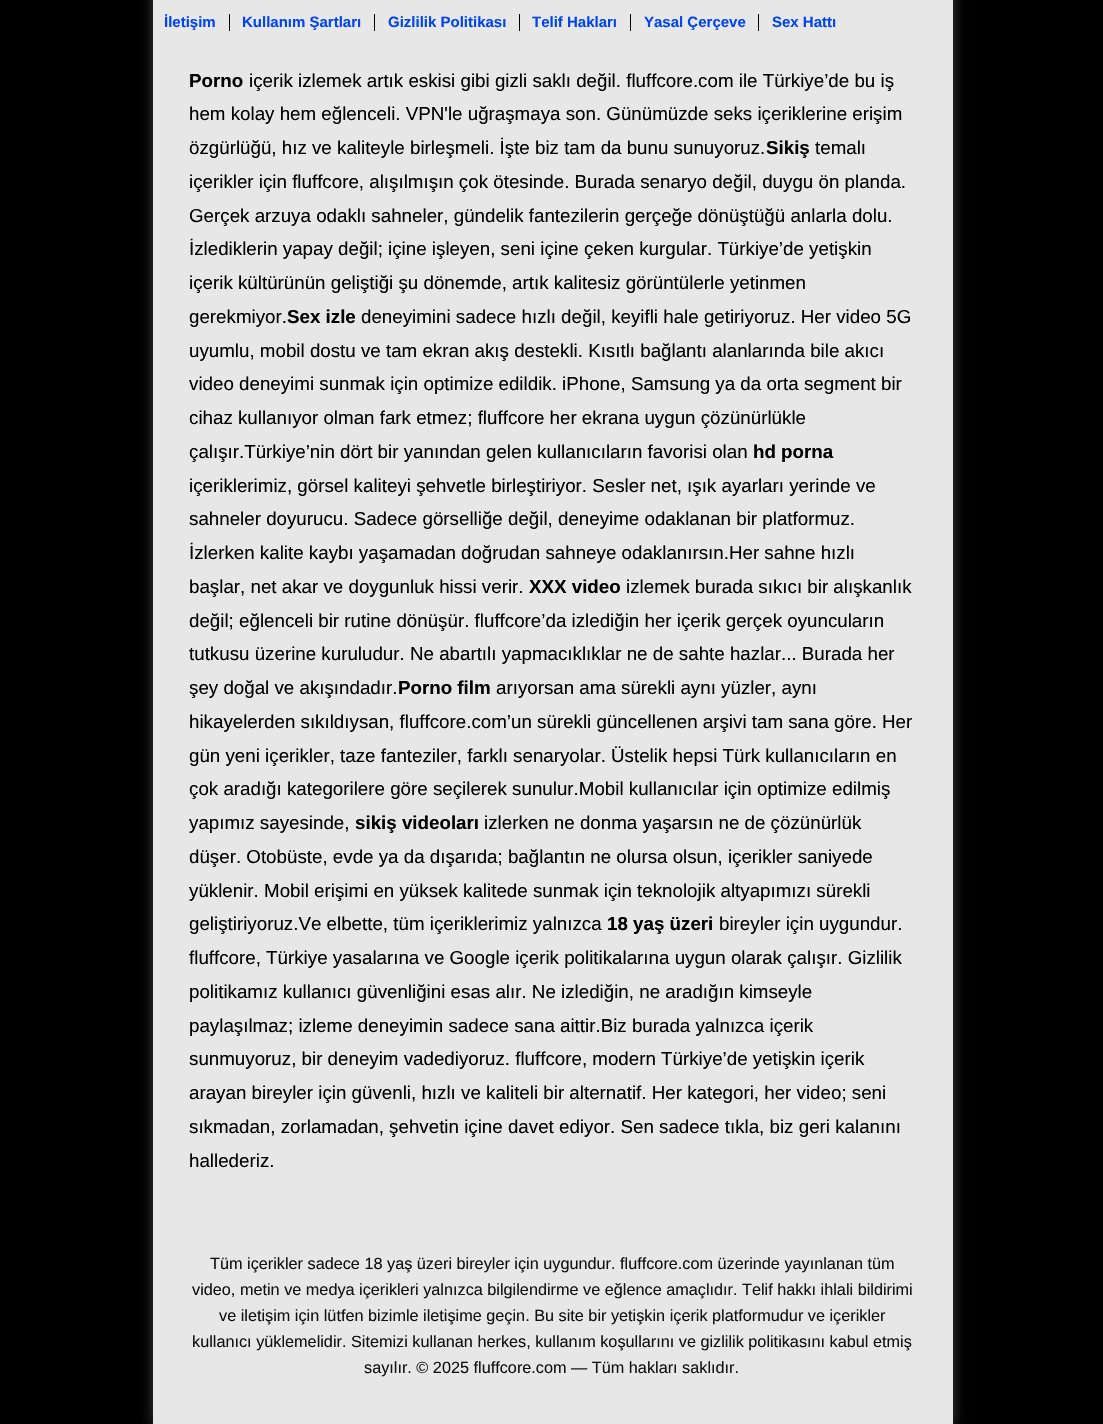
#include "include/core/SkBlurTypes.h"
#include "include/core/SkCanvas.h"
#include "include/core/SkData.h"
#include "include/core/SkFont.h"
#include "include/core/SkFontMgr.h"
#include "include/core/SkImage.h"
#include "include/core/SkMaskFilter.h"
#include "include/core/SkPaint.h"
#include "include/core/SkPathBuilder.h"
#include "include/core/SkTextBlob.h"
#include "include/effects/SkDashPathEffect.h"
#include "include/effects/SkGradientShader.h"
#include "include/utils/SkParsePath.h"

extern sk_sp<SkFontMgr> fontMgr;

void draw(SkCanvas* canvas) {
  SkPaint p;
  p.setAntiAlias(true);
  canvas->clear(SK_ColorBLACK);
  p.setColor(SkColorSetARGB(128, 120, 120, 120));
  p.setMaskFilter(SkMaskFilter::MakeBlur(kNormal_SkBlurStyle, 6));
  canvas->drawRect(SkRect::MakeLTRB(153, -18, 953, 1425), p);
  p.setMaskFilter(nullptr);
  p.setColor(SkColorSetRGB(231, 231, 231));
  canvas->drawRect(SkRect::MakeLTRB(153, 0, 953, 1424), p);
  p.setColor(SK_ColorBLACK);
  canvas->drawRect(SkRect::MakeLTRB(229, 14, 230, 31), p);
  canvas->drawRect(SkRect::MakeLTRB(374, 14, 375, 31), p);
  canvas->drawRect(SkRect::MakeLTRB(519, 14, 520, 31), p);
  canvas->drawRect(SkRect::MakeLTRB(630, 14, 631, 31), p);
  canvas->drawRect(SkRect::MakeLTRB(758, 14, 759, 31), p);
  SkFont font1(fontMgr->matchFamilyStyle("Liberation Sans", SkFontStyle::Bold()), 15);
  font1.setSubpixel(true);
  p.setColor(SkColorSetRGB(0, 68, 242));
  canvas->drawString("İletişim", 164, 27, font1, p);
  canvas->drawString("Kullanım Şartları", 242, 27, font1, p);
  canvas->drawString("Gizlilik Politikası", 388, 27, font1, p);
  canvas->drawString("Telif Hakları", 532, 27, font1, p);
  canvas->drawString("Yasal Çerçeve", 644, 27, font1, p);
  canvas->drawString("Sex Hattı", 772, 27, font1, p);
  SkFont font2(fontMgr->matchFamilyStyle("Liberation Sans", SkFontStyle::Bold()), 18.75f);
  font2.setSubpixel(true);
  p.setColor(SK_ColorBLACK);
  canvas->drawString("Porno", 189, 87, font2, p);
  SkFont font3(fontMgr->matchFamilyStyle("Liberation Sans", SkFontStyle::Normal()), 18.75f);
  font3.setSubpixel(true);
  canvas->drawString("içerik izlemek artık eskisi gibi gizli saklı değil. fluffcore.com ile Türkiye’de bu iş", 249, 87, font3, p);
  canvas->drawString("hem kolay hem eğlenceli. VPN'le uğraşmaya son. Günümüzde seks içeriklerine erişim", 189, 120, font3, p);
  canvas->drawString("özgürlüğü, hız ve kaliteyle birleşmeli. İşte biz tam da bunu sunuyoruz.", 189, 154, font3, p);
  canvas->drawString("Sikiş", 766, 154, font2, p);
  canvas->drawString("temalı", 815, 154, font3, p);
  canvas->drawString("içerikler için fluffcore, alışılmışın çok ötesinde. Burada senaryo değil, duygu ön planda.", 189, 188, font3, p);
  canvas->drawString("Gerçek arzuya odaklı sahneler, gündelik fantezilerin gerçeğe dönüştüğü anlarla dolu.", 189, 222, font3, p);
  canvas->drawString("İzlediklerin yapay değil; içine işleyen, seni içine çeken kurgular. Türkiye’de yetişkin", 189, 255, font3, p);
  canvas->drawString("içerik kültürünün geliştiği şu dönemde, artık kalitesiz görüntülerle yetinmen", 189, 289, font3, p);
  canvas->drawString("gerekmiyor.", 189, 323, font3, p);
  canvas->drawString("Sex izle", 287, 323, font2, p);
  canvas->drawString("deneyimini sadece hızlı değil, keyifli hale getiriyoruz. Her video 5G", 361, 323, font3, p);
  canvas->drawString("uyumlu, mobil dostu ve tam ekran akış destekli. Kısıtlı bağlantı alanlarında bile akıcı", 189, 357, font3, p);
  canvas->drawString("video deneyimi sunmak için optimize edildik. iPhone, Samsung ya da orta segment bir", 189, 390, font3, p);
  canvas->drawString("cihaz kullanıyor olman fark etmez; fluffcore her ekrana uygun çözünürlükle", 189, 424, font3, p);
  canvas->drawString("çalışır.Türkiye’nin dört bir yanından gelen kullanıcıların favorisi olan", 189, 458, font3, p);
  canvas->drawString("hd porna", 753, 458, font2, p);
  canvas->drawString("içeriklerimiz, görsel kaliteyi şehvetle birleştiriyor. Sesler net, ışık ayarları yerinde ve", 189, 492, font3, p);
  canvas->drawString("sahneler doyurucu. Sadece görselliğe değil, deneyime odaklanan bir platformuz.", 189, 525, font3, p);
  canvas->drawString("İzlerken kalite kaybı yaşamadan doğrudan sahneye odaklanırsın.Her sahne hızlı", 189, 559, font3, p);
  canvas->drawString("başlar, net akar ve doygunluk hissi verir.", 189, 593, font3, p);
  canvas->drawString("XXX video", 529, 593, font2, p);
  canvas->drawString("izlemek burada sıkıcı bir alışkanlık", 626, 593, font3, p);
  canvas->drawString("değil; eğlenceli bir rutine dönüşür. fluffcore’da izlediğin her içerik gerçek oyuncuların", 189, 627, font3, p);
  canvas->drawString("tutkusu üzerine kuruludur. Ne abartılı yapmacıklıklar ne de sahte hazlar... Burada her", 189, 660, font3, p);
  canvas->drawString("şey doğal ve akışındadır.", 189, 694, font3, p);
  canvas->drawString("Porno film", 398, 694, font2, p);
  canvas->drawString("arıyorsan ama sürekli aynı yüzler, aynı", 496, 694, font3, p);
  canvas->drawString("hikayelerden sıkıldıysan, fluffcore.com’un sürekli güncellenen arşivi tam sana göre. Her", 189, 728, font3, p);
  canvas->drawString("gün yeni içerikler, taze fanteziler, farklı senaryolar. Üstelik hepsi Türk kullanıcıların en", 189, 762, font3, p);
  canvas->drawString("çok aradığı kategorilere göre seçilerek sunulur.Mobil kullanıcılar için optimize edilmiş", 189, 795, font3, p);
  canvas->drawString("yapımız sayesinde,", 189, 829, font3, p);
  canvas->drawString("sikiş videoları", 355, 829, font2, p);
  canvas->drawString("izlerken ne donma yaşarsın ne de çözünürlük", 484, 829, font3, p);
  canvas->drawString("düşer. Otobüste, evde ya da dışarıda; bağlantın ne olursa olsun, içerikler saniyede", 189, 863, font3, p);
  canvas->drawString("yüklenir. Mobil erişimi en yüksek kalitede sunmak için teknolojik altyapımızı sürekli", 189, 897, font3, p);
  canvas->drawString("geliştiriyoruz.Ve elbette, tüm içeriklerimiz yalnızca", 189, 930, font3, p);
  canvas->drawString("18 yaş üzeri", 607, 930, font2, p);
  canvas->drawString("bireyler için uygundur.", 719, 930, font3, p);
  canvas->drawString("fluffcore, Türkiye yasalarına ve Google içerik politikalarına uygun olarak çalışır. Gizlilik", 189, 964, font3, p);
  canvas->drawString("politikamız kullanıcı güvenliğini esas alır. Ne izlediğin, ne aradığın kimseyle", 189, 998, font3, p);
  canvas->drawString("paylaşılmaz; izleme deneyimin sadece sana aittir.Biz burada yalnızca içerik", 189, 1032, font3, p);
  canvas->drawString("sunmuyoruz, bir deneyim vadediyoruz. fluffcore, modern Türkiye’de yetişkin içerik", 189, 1065, font3, p);
  canvas->drawString("arayan bireyler için güvenli, hızlı ve kaliteli bir alternatif. Her kategori, her video; seni", 189, 1099, font3, p);
  canvas->drawString("sıkmadan, zorlamadan, şehvetin içine davet ediyor. Sen sadece tıkla, biz geri kalanını", 189, 1133, font3, p);
  canvas->drawString("hallederiz.", 189, 1167, font3, p);
  SkFont font4(fontMgr->matchFamilyStyle("Liberation Sans", SkFontStyle::Normal()), 16.25f);
  font4.setSubpixel(true);
  p.setColor(SkColorSetRGB(17, 17, 17));
  canvas->drawString("Tüm içerikler sadece 18 yaş üzeri bireyler için uygundur. fluffcore.com üzerinde yayınlanan tüm", 210, 1269, font4, p);
  canvas->drawString("video, metin ve medya içerikleri yalnızca bilgilendirme ve eğlence amaçlıdır. Telif hakkı ihlali bildirimi", 192, 1295, font4, p);
  canvas->drawString("ve iletişim için lütfen bizimle iletişime geçin. Bu site bir yetişkin içerik platformudur ve içerikler", 219, 1321, font4, p);
  canvas->drawString("kullanıcı yüklemelidir. Sitemizi kullanan herkes, kullanım koşullarını ve gizlilik politikasını kabul etmiş", 192, 1347, font4, p);
  canvas->drawString("sayılır. © 2025 fluffcore.com — Tüm hakları saklıdır.", 364, 1373, font4, p);
}
